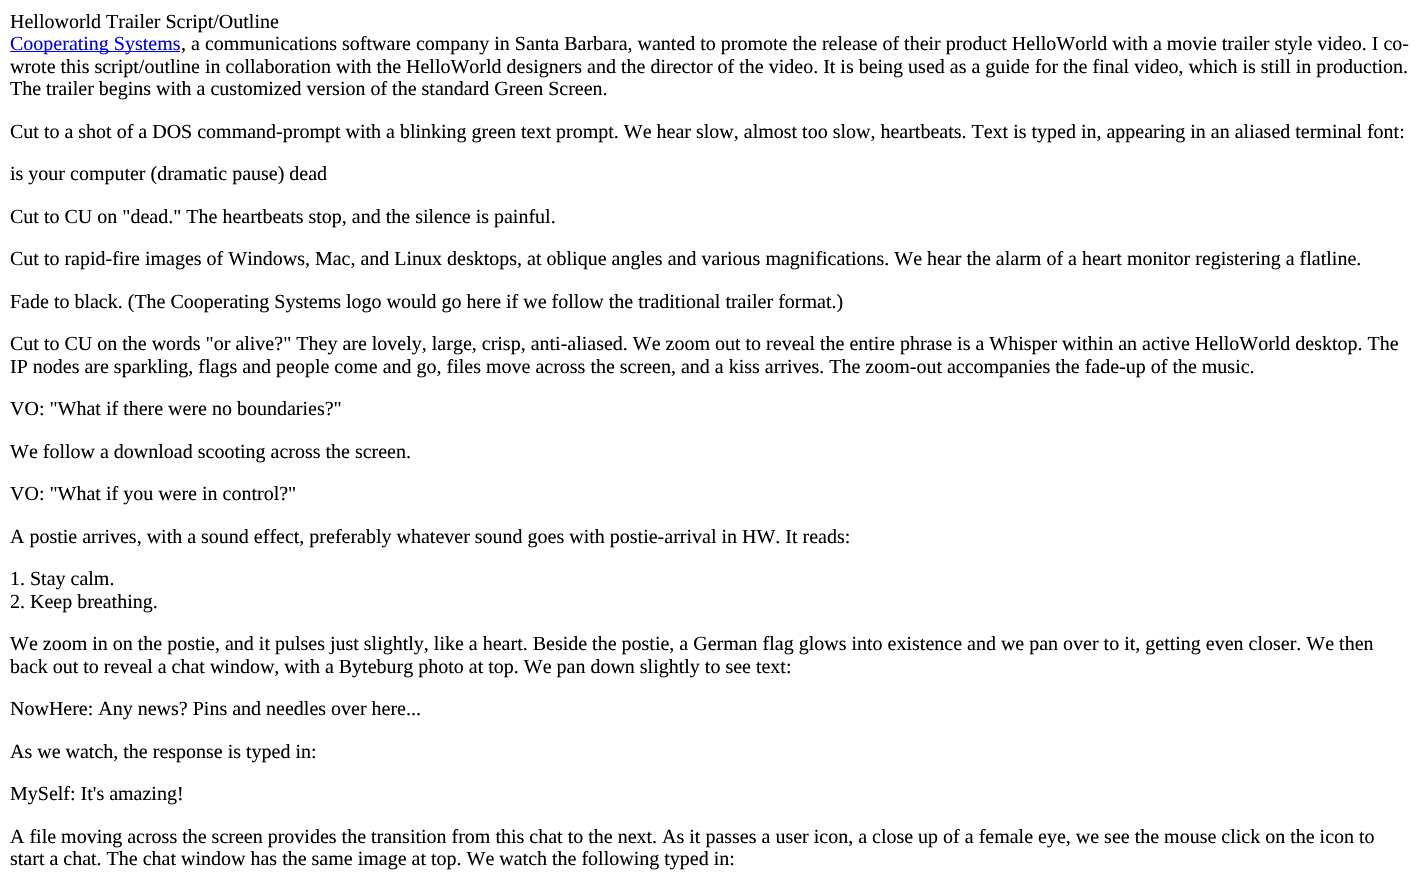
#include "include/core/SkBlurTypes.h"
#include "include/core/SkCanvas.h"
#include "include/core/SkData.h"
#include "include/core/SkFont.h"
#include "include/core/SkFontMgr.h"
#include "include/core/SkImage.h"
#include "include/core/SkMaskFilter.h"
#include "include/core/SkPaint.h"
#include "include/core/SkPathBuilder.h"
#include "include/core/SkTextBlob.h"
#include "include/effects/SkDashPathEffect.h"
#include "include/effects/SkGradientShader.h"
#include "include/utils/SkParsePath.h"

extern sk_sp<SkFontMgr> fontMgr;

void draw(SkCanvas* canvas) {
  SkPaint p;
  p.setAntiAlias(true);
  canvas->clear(SK_ColorWHITE);
  p.setColor(SkColorSetRGB(0, 0, 238));
  canvas->drawRect(SkRect::MakeLTRB(10, 51, 180, 52), p);
  SkFont font1(fontMgr->matchFamilyStyle("Liberation Serif", SkFontStyle::Normal()), 20);
  font1.setSubpixel(true);
  p.setColor(SK_ColorBLACK);
  canvas->drawString("Helloworld Trailer Script/Outline", 10, 28, font1, p);
  p.setColor(SkColorSetRGB(0, 0, 238));
  canvas->drawString("Cooperating Systems", 10, 50, font1, p);
  p.setColor(SK_ColorBLACK);
  canvas->drawString(", a communications software company in Santa Barbara, wanted to promote the release of their product HelloWorld with a movie trailer style video. I co-", 181, 50, font1, p);
  canvas->drawString("wrote this script/outline in collaboration with the HelloWorld designers and the director of the video. It is being used as a guide for the final video, which is still in production.", 10, 73, font1, p);
  canvas->drawString("The trailer begins with a customized version of the standard Green Screen.", 10, 95, font1, p);
  canvas->drawString("Cut to a shot of a DOS command-prompt with a blinking green text prompt. We hear slow, almost too slow, heartbeats. Text is typed in, appearing in an aliased terminal font:", 10, 138, font1, p);
  canvas->drawString("is your computer (dramatic pause) dead", 10, 180, font1, p);
  canvas->drawString("Cut to CU on \"dead.\" The heartbeats stop, and the silence is painful.", 10, 223, font1, p);
  canvas->drawString("Cut to rapid-fire images of Windows, Mac, and Linux desktops, at oblique angles and various magnifications. We hear the alarm of a heart monitor registering a flatline.", 10, 265, font1, p);
  canvas->drawString("Fade to black. (The Cooperating Systems logo would go here if we follow the traditional trailer format.)", 10, 308, font1, p);
  canvas->drawString("Cut to CU on the words \"or alive?\" They are lovely, large, crisp, anti-aliased. We zoom out to reveal the entire phrase is a Whisper within an active HelloWorld desktop. The", 10, 350, font1, p);
  canvas->drawString("IP nodes are sparkling, flags and people come and go, files move across the screen, and a kiss arrives. The zoom-out accompanies the fade-up of the music.", 10, 373, font1, p);
  canvas->drawString("VO: \"What if there were no boundaries?\"", 10, 415, font1, p);
  canvas->drawString("We follow a download scooting across the screen.", 10, 458, font1, p);
  canvas->drawString("VO: \"What if you were in control?\"", 10, 500, font1, p);
  canvas->drawString("A postie arrives, with a sound effect, preferably whatever sound goes with postie-arrival in HW. It reads:", 10, 543, font1, p);
  canvas->drawString("1. Stay calm.", 10, 585, font1, p);
  canvas->drawString("2. Keep breathing.", 10, 608, font1, p);
  canvas->drawString("We zoom in on the postie, and it pulses just slightly, like a heart. Beside the postie, a German flag glows into existence and we pan over to it, getting even closer. We then", 10, 650, font1, p);
  canvas->drawString("back out to reveal a chat window, with a Byteburg photo at top. We pan down slightly to see text:", 10, 673, font1, p);
  canvas->drawString("NowHere: Any news? Pins and needles over here...", 10, 715, font1, p);
  canvas->drawString("As we watch, the response is typed in:", 10, 758, font1, p);
  canvas->drawString("MySelf: It's amazing!", 10, 800, font1, p);
  canvas->drawString("A file moving across the screen provides the transition from this chat to the next. As it passes a user icon, a close up of a female eye, we see the mouse click on the icon to", 10, 843, font1, p);
  canvas->drawString("start a chat. The chat window has the same image at top. We watch the following typed in:", 10, 865, font1, p);
}
